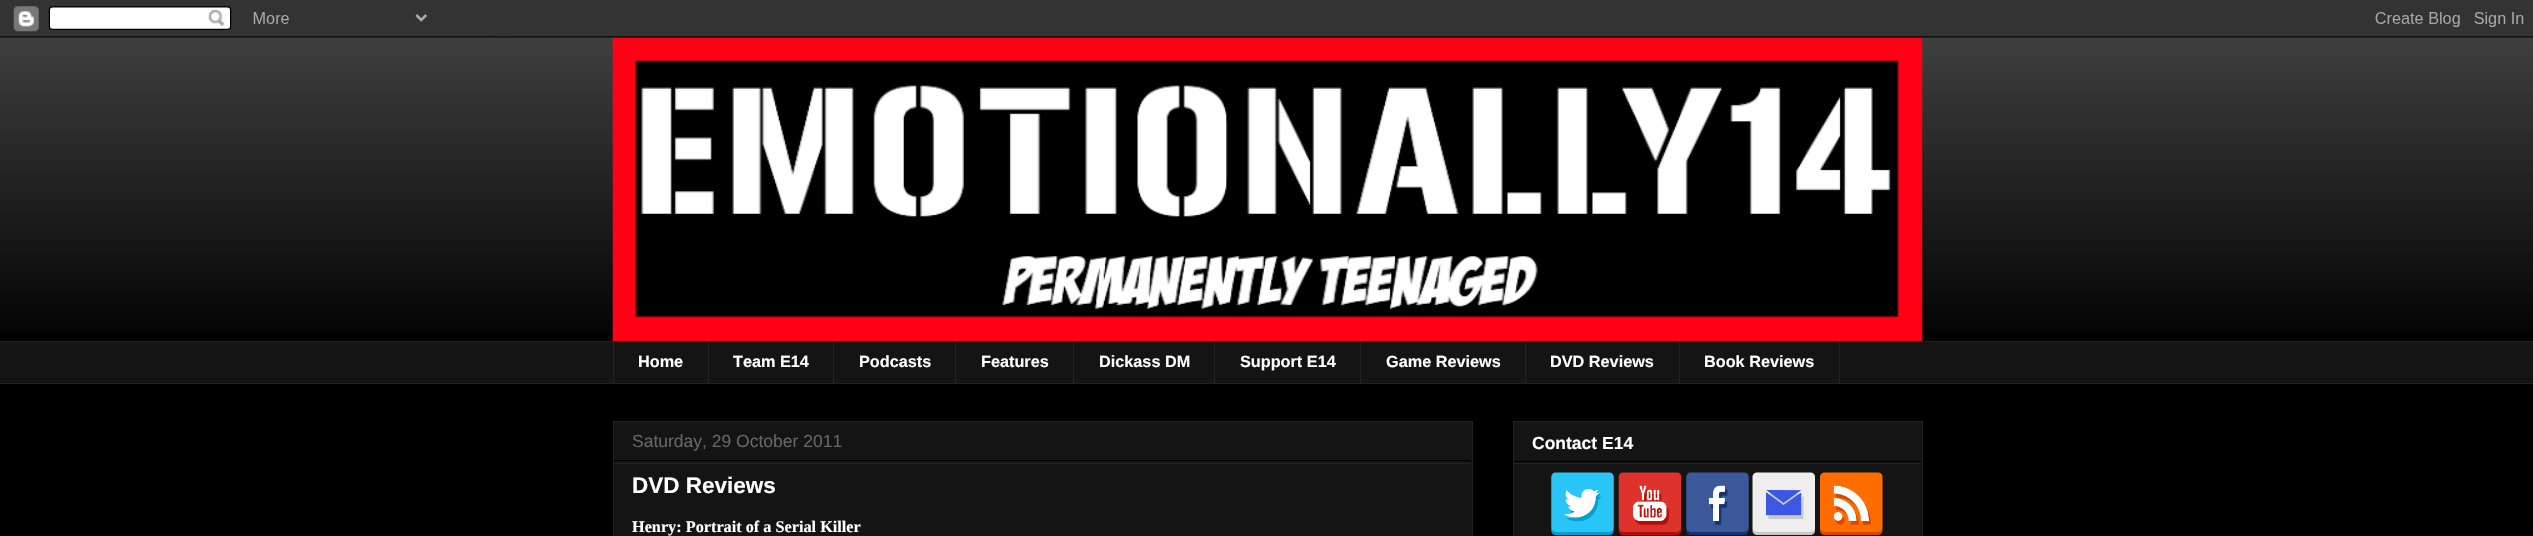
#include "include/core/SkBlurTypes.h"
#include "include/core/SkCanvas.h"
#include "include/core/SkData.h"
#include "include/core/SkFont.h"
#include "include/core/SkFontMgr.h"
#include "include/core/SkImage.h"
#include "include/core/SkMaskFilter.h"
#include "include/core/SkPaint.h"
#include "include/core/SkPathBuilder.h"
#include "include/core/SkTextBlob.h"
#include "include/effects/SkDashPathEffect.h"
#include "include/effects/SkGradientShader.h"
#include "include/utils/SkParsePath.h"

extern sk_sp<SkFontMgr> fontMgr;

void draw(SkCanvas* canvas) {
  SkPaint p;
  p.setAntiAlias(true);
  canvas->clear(SK_ColorBLACK);
  canvas->drawImageRect(SkImages::DeferredFromEncodedData(SkData::MakeFromFileName("images/2.png")), SkRect::MakeLTRB(0, 36, 2533, 335), SkSamplingOptions());
  canvas->drawImageRect(SkImages::DeferredFromEncodedData(SkData::MakeFromFileName("images/1.png")), SkRect::MakeLTRB(0, 0, 2533, 38), SkSamplingOptions());
  canvas->drawImageRect(SkImages::DeferredFromEncodedData(SkData::MakeFromFileName("images/3.png")), SkRect::MakeLTRB(612, 38, 1923, 341), SkSamplingOptions());
  p.setColor(SkColorSetRGB(20, 20, 20));
  canvas->drawRect(SkRect::MakeLTRB(0, 342, 2533, 383), p);
  p.setColor(SkColorSetRGB(34, 34, 34));
  canvas->drawRect(SkRect::MakeLTRB(0, 341, 2533, 342), p);
  canvas->drawRect(SkRect::MakeLTRB(613, 341, 614, 384), p);
  canvas->drawRect(SkRect::MakeLTRB(708, 341, 709, 384), p);
  canvas->drawRect(SkRect::MakeLTRB(833, 341, 834, 384), p);
  canvas->drawRect(SkRect::MakeLTRB(955, 341, 956, 384), p);
  canvas->drawRect(SkRect::MakeLTRB(1073, 341, 1074, 384), p);
  canvas->drawRect(SkRect::MakeLTRB(1214, 341, 1215, 384), p);
  canvas->drawRect(SkRect::MakeLTRB(1360, 341, 1361, 384), p);
  canvas->drawRect(SkRect::MakeLTRB(1525, 341, 1526, 384), p);
  p.setStyle(SkPaint::kStroke_Style);
  p.setStrokeWidth(1);
  canvas->drawRect(SkRect::MakeLTRB(1679.5f, 341.5f, 1839.5f, 383.5f), p);
  p.setStyle(SkPaint::kFill_Style);
  canvas->drawRect(SkRect::MakeLTRB(0, 383, 2533, 384), p);
  p.setColor(SkColorSetRGB(20, 20, 20));
  canvas->drawRect(SkRect::MakeLTRB(613.5f, 421.5f, 1472.5f, 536.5f), p);
  p.setStyle(SkPaint::kStroke_Style);
  p.setColor(SkColorSetRGB(34, 34, 34));
  canvas->drawRect(SkRect::MakeLTRB(613.5f, 421.5f, 1472.5f, 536.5f), p);
  p.setStyle(SkPaint::kFill_Style);
  p.setColor(SK_ColorBLACK);
  canvas->drawRect(SkRect::MakeLTRB(614, 460, 1471, 461), p);
  p.setColor(SkColorSetRGB(34, 34, 34));
  canvas->drawRect(SkRect::MakeLTRB(614, 463, 1471, 464), p);
  p.setColor(SkColorSetRGB(20, 20, 20));
  canvas->drawRect(SkRect::MakeLTRB(1513.5f, 421.5f, 1922.5f, 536.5f), p);
  p.setStyle(SkPaint::kStroke_Style);
  p.setColor(SkColorSetRGB(34, 34, 34));
  canvas->drawRect(SkRect::MakeLTRB(1513.5f, 421.5f, 1922.5f, 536.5f), p);
  p.setStyle(SkPaint::kFill_Style);
  p.setColor(SK_ColorBLACK);
  canvas->drawRect(SkRect::MakeLTRB(1514, 461, 1921, 462), p);
  p.setColor(SkColorSetRGB(34, 34, 34));
  canvas->drawRect(SkRect::MakeLTRB(1514, 463, 1921, 464), p);
  canvas->drawImageRect(SkImages::DeferredFromEncodedData(SkData::MakeFromFileName("images/4.png")), SkRect::MakeLTRB(1551, 472, 1614, 535), SkSamplingOptions());
  canvas->drawImageRect(SkImages::DeferredFromEncodedData(SkData::MakeFromFileName("images/5.png")), SkRect::MakeLTRB(1618, 472, 1682, 535), SkSamplingOptions());
  canvas->drawImageRect(SkImages::DeferredFromEncodedData(SkData::MakeFromFileName("images/6.png")), SkRect::MakeLTRB(1686, 472, 1749, 535), SkSamplingOptions());
  canvas->drawImageRect(SkImages::DeferredFromEncodedData(SkData::MakeFromFileName("images/7.png")), SkRect::MakeLTRB(1752, 472, 1815, 535), SkSamplingOptions());
  canvas->drawImageRect(SkImages::DeferredFromEncodedData(SkData::MakeFromFileName("images/8.png")), SkRect::MakeLTRB(1820, 472, 1883, 535), SkSamplingOptions());
  SkFont font1(fontMgr->matchFamilyStyle("Liberation Sans", SkFontStyle::Bold()), 16.25f);
  font1.setSubpixel(true);
  p.setColor(SK_ColorWHITE);
  canvas->drawString("Home", 638, 367, font1, p);
  canvas->drawString("Team E14", 733, 367, font1, p);
  canvas->drawString("Podcasts", 859, 367, font1, p);
  canvas->drawString("Features", 981, 367, font1, p);
  canvas->drawString("Dickass DM", 1099, 367, font1, p);
  canvas->drawString("Support E14", 1240, 367, font1, p);
  canvas->drawString("Game Reviews", 1386, 367, font1, p);
  canvas->drawString("DVD Reviews", 1550, 367, font1, p);
  canvas->drawString("Book Reviews", 1704, 367, font1, p);
  SkFont font2(fontMgr->matchFamilyStyle("Liberation Sans", SkFontStyle::Normal()), 17.5f);
  font2.setSubpixel(true);
  p.setColor(SkColorSetRGB(102, 102, 102));
  canvas->drawString("Saturday, 29 October 2011", 632, 447, font2, p);
  SkFont font3(fontMgr->matchFamilyStyle("Liberation Sans", SkFontStyle::Bold()), 22.5f);
  font3.setSubpixel(true);
  p.setColor(SK_ColorWHITE);
  canvas->drawString("DVD Reviews", 632, 493, font3, p);
  SkFont font4(fontMgr->matchFamilyStyle("Liberation Serif", SkFontStyle::Bold()), 16.25f);
  font4.setSubpixel(true);
  canvas->drawString("Henry: Portrait of a Serial Killer", 632, 532, font4, p);
  SkFont font5(fontMgr->matchFamilyStyle("Liberation Sans", SkFontStyle::Bold()), 17.5f);
  font5.setSubpixel(true);
  canvas->drawString("Contact E14", 1532, 449, font5, p);
}
